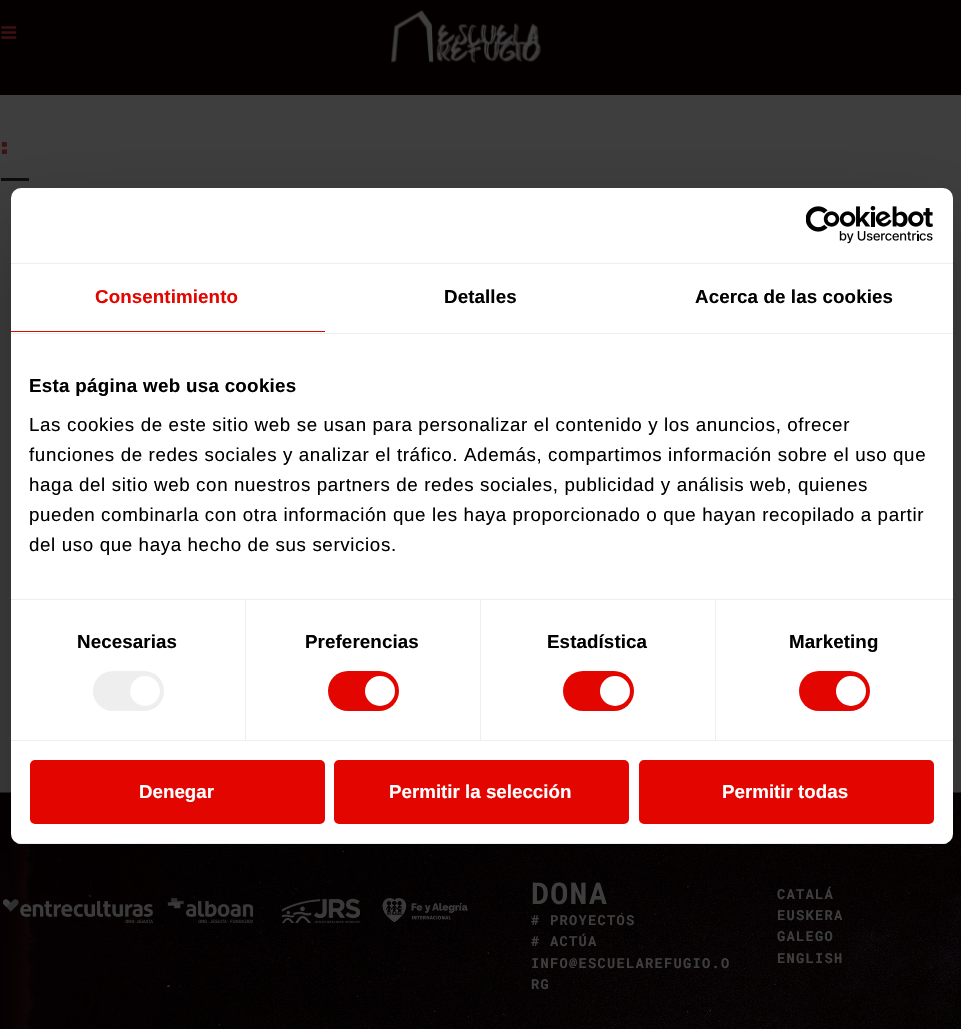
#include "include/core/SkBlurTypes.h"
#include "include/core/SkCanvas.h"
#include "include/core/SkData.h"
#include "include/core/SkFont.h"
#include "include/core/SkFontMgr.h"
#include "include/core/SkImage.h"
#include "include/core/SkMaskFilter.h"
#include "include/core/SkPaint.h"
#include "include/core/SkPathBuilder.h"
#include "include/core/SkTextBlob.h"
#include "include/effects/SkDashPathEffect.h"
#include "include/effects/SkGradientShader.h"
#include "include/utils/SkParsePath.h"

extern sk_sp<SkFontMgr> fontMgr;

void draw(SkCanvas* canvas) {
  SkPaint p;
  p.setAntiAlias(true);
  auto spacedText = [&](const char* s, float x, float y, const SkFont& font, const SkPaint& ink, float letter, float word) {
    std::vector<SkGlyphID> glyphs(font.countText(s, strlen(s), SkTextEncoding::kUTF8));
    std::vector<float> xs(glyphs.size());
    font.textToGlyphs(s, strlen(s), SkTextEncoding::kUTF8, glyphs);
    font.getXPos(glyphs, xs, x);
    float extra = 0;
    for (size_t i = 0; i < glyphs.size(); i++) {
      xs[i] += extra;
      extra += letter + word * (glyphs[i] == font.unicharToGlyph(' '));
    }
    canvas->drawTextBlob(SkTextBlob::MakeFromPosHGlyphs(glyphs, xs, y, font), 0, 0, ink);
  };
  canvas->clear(SkColorSetRGB(62, 62, 62));
  p.setColor(SkColorSetRGB(4, 0, 0));
  canvas->drawRect(SkRect::MakeLTRB(0, 0, 961, 95), p);
  canvas->drawImageRect(SkImages::DeferredFromEncodedData(SkData::MakeFromFileName("images/1.png")), SkRect::MakeLTRB(1, 26, 17, 39), SkSamplingOptions());
  canvas->drawImageRect(SkImages::DeferredFromEncodedData(SkData::MakeFromFileName("images/2.png")), SkRect::MakeLTRB(391, 10, 541, 64), SkSamplingOptions());
  p.setColor(SkColorSetRGB(12, 12, 12));
  canvas->drawRect(SkRect::MakeLTRB(1, 178, 29, 181), p);
  canvas->drawImageRect(SkImages::DeferredFromEncodedData(SkData::MakeFromFileName("images/3.png")), SkRect::MakeLTRB(0, 792, 961, 1029), SkSamplingOptions());
  canvas->drawImageRect(SkImages::DeferredFromEncodedData(SkData::MakeFromFileName("images/4.png")), SkRect::MakeLTRB(3, 898, 468, 923), SkSamplingOptions());
  p.setColor(SkColorSetARGB(77, 0, 0, 0));
  p.setMaskFilter(SkMaskFilter::MakeBlur(kNormal_SkBlurStyle, 42.5f));
  canvas->drawRoundRect(SkRect::MakeLTRB(11, 228, 953, 884), 10, 10, p);
  p.setMaskFilter(nullptr);
  p.setColor(SK_ColorWHITE);
  canvas->drawRoundRect(SkRect::MakeLTRB(11, 188, 953, 844), 10, 10, p);
  p.setColor(SkColorSetRGB(238, 238, 238));
  canvas->drawRect(SkRect::MakeLTRB(11, 263, 953, 264), p);
  canvas->drawImageRect(SkImages::DeferredFromEncodedData(SkData::MakeFromFileName("images/5.png")), SkRect::MakeLTRB(806, 206, 933, 244), SkSamplingOptions());
  canvas->drawRect(SkRect::MakeLTRB(11, 333, 953, 334), p);
  p.setColor(SkColorSetRGB(227, 6, 0));
  canvas->drawRect(SkRect::MakeLTRB(11, 331, 325, 332), p);
  p.setColor(SkColorSetRGB(238, 238, 238));
  canvas->drawRect(SkRect::MakeLTRB(11, 599, 953, 600), p);
  canvas->drawRect(SkRect::MakeLTRB(11, 740, 953, 741), p);
  canvas->drawRect(SkRect::MakeLTRB(245, 600, 246, 740), p);
  canvas->drawRoundRect(SkRect::MakeLTRB(93, 671, 164, 711), 20, 20, p);
  p.setColor(SK_ColorWHITE);
  canvas->drawCircle(145, 691, 15, p);
  p.setColor(SkColorSetRGB(238, 238, 238));
  canvas->drawRect(SkRect::MakeLTRB(480, 600, 481, 740), p);
  p.setColor(SkColorSetRGB(227, 6, 0));
  canvas->drawRoundRect(SkRect::MakeLTRB(328, 671, 399, 711), 20, 20, p);
  p.setColor(SK_ColorWHITE);
  canvas->drawCircle(380, 691, 15, p);
  p.setColor(SkColorSetRGB(238, 238, 238));
  canvas->drawRect(SkRect::MakeLTRB(715, 600, 716, 740), p);
  p.setColor(SkColorSetRGB(227, 6, 0));
  canvas->drawRoundRect(SkRect::MakeLTRB(563, 671, 634, 711), 20, 20, p);
  p.setColor(SK_ColorWHITE);
  canvas->drawCircle(615, 691, 15, p);
  p.setColor(SkColorSetRGB(227, 6, 0));
  canvas->drawRoundRect(SkRect::MakeLTRB(799, 671, 870, 711), 20, 20, p);
  p.setColor(SK_ColorWHITE);
  canvas->drawCircle(851, 691, 15, p);
  canvas->save();
  canvas->clipPath(SkPathBuilder().moveTo(21, 188).lineTo(943, 188).cubicTo(948.5f, 188, 953, 192.5f, 953, 198).lineTo(953, 834).cubicTo(953, 839.5f, 948.5f, 844, 943, 844).lineTo(21, 844).cubicTo(15.5f, 844, 11, 839.5f, 11, 834).lineTo(11, 198).cubicTo(11, 192.5f, 15.5f, 188, 21, 188).close().detach(), true);
  p.setColor(SkColorSetRGB(238, 238, 238));
  canvas->drawRect(SkRect::MakeLTRB(11, 843, 953, 844), p);
  canvas->restore();
  p.setColor(SkColorSetRGB(227, 6, 0));
  canvas->drawRoundRect(SkRect::MakeLTRB(31.5f, 761.5f, 323.5f, 822.5f), 3.5f, 3.5f, p);
  p.setStyle(SkPaint::kStroke_Style);
  p.setStrokeWidth(3);
  canvas->drawRoundRect(SkRect::MakeLTRB(31.5f, 761.5f, 323.5f, 822.5f), 3.5f, 3.5f, p);
  p.setStyle(SkPaint::kFill_Style);
  canvas->drawRoundRect(SkRect::MakeLTRB(335.5f, 761.5f, 627.5f, 822.5f), 3.5f, 3.5f, p);
  p.setStyle(SkPaint::kStroke_Style);
  canvas->drawRoundRect(SkRect::MakeLTRB(335.5f, 761.5f, 627.5f, 822.5f), 3.5f, 3.5f, p);
  p.setStyle(SkPaint::kFill_Style);
  canvas->drawRoundRect(SkRect::MakeLTRB(640.5f, 761.5f, 932.5f, 822.5f), 3.5f, 3.5f, p);
  p.setStyle(SkPaint::kStroke_Style);
  canvas->drawRoundRect(SkRect::MakeLTRB(640.5f, 761.5f, 932.5f, 822.5f), 3.5f, 3.5f, p);
  SkFont font1(fontMgr->matchFamilyStyle("Rubik", SkFontStyle(900, SkFontStyle::kNormal_Width, SkFontStyle::kUpright_Slant)), 21);
  font1.setSubpixel(true);
  p.setStyle(SkPaint::kFill_Style);
  p.setColor(SkColorSetRGB(62, 17, 16));
  spacedText(":", 1, 154, font1, p, 1.25f, 0);
  SkFont font2(fontMgr->matchFamilyStyle("Roboto Mono", SkFontStyle::Bold()), 30);
  font2.setSubpixel(true);
  p.setColor(SkColorSetRGB(62, 62, 62));
  spacedText("DONA", 531, 904, font2, p, 1.25f, 0);
  SkFont font3(fontMgr->matchFamilyStyle("Roboto Mono", SkFontStyle::Bold()), 13.75f);
  font3.setSubpixel(true);
  spacedText("# PROYECTOS", 531, 925, font3, p, 1.25f, 0);
  spacedText("# ACTÚA", 531, 946, font3, p, 1.25f, 0);
  spacedText("INFO@ESCUELAREFUGIO.O", 531, 968, font3, p, 1.25f, 0);
  spacedText("RG", 531, 989, font3, p, 1.25f, 0);
  spacedText("CATALÁ", 777, 899, font3, p, 1.25f, 0);
  spacedText("EUSKERA", 777, 920, font3, p, 1.25f, 0);
  spacedText("GALEGO", 777, 941, font3, p, 1.25f, 0);
  spacedText("ENGLISH", 777, 963, font3, p, 1.25f, 0);
  SkFont font4(fontMgr->matchFamilyStyle("Liberation Sans", SkFontStyle::Bold()), 18.75f);
  font4.setSubpixel(true);
  p.setColor(SkColorSetRGB(227, 6, 0));
  spacedText("Consentimiento", 95, 303, font4, p, 0.1f, 0);
  p.setColor(SK_ColorBLACK);
  spacedText("Detalles", 444, 303, font4, p, 0.1f, 0);
  spacedText("Acerca de las cookies", 695, 303, font4, p, 0.1f, 0);
  spacedText("Esta página web usa cookies", 29, 392, font4, p, 0.3f, 0);
  SkFont font5(fontMgr->matchFamilyStyle("Liberation Sans", SkFontStyle::Normal()), 18.75f);
  font5.setSubpixel(true);
  spacedText("Las cookies de este sitio web se usan para personalizar el contenido y los anuncios, ofrecer", 29, 431, font5, p, 0.62f, 0);
  spacedText("funciones de redes sociales y analizar el tráfico. Además, compartimos información sobre el uso que", 29, 461, font5, p, 0.62f, 0);
  spacedText("haga del sitio web con nuestros partners de redes sociales, publicidad y análisis web, quienes", 29, 491, font5, p, 0.62f, 0);
  spacedText("pueden combinarla con otra información que les haya proporcionado o que hayan recopilado a partir", 29, 521, font5, p, 0.62f, 0);
  spacedText("del uso que haya hecho de sus servicios.", 29, 551, font5, p, 0.62f, 0);
  spacedText("Necesarias", 77, 648, font4, p, 0.1f, 0);
  spacedText("Preferencias", 305, 648, font4, p, 0.1f, 0);
  spacedText("Estadística", 547, 648, font4, p, 0.1f, 0);
  spacedText("Marketing", 789, 648, font4, p, 0.1f, 0);
  p.setColor(SK_ColorWHITE);
  canvas->drawString("Denegar", 139, 798, font4, p);
  canvas->drawString("Permitir la selección", 389, 798, font4, p);
  canvas->drawString("Permitir todas", 722, 798, font4, p);
}
